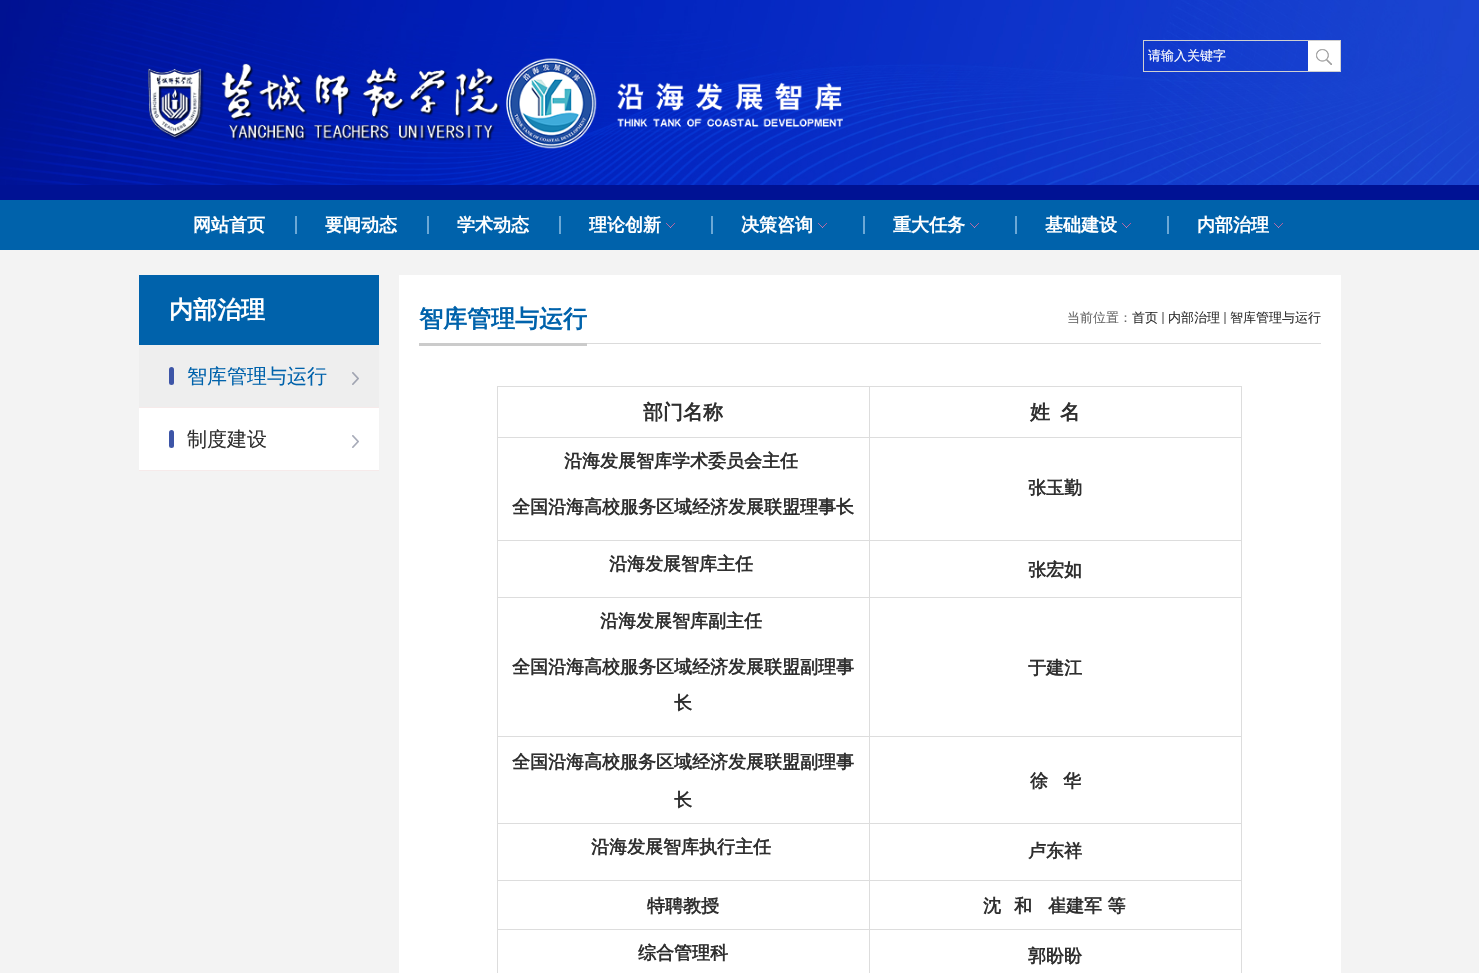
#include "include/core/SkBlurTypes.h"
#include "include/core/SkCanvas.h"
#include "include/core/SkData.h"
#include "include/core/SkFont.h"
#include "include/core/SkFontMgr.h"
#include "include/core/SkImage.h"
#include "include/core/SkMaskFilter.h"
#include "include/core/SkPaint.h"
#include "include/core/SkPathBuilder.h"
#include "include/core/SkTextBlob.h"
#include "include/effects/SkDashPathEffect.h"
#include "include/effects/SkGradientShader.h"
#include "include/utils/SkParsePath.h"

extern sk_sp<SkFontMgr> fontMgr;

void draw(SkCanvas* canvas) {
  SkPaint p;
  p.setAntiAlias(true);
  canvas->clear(SkColorSetRGB(243, 243, 243));
  p.setColor(SkColorSetRGB(0, 18, 148));
  canvas->drawRect(SkRect::MakeLTRB(0, 185, 1479, 200), p);
  canvas->drawImageRect(SkImages::DeferredFromEncodedData(SkData::MakeFromFileName("images/1.png")), SkRect::MakeLTRB(0, 0, 1479, 185), SkSamplingOptions());
  p.setStyle(SkPaint::kStroke_Style);
  p.setStrokeWidth(1);
  p.setColor(SkColorSetRGB(208, 208, 208));
  canvas->drawRect(SkRect::MakeLTRB(1143.5f, 40.5f, 1340.5f, 71.5f), p);
  p.setStyle(SkPaint::kFill_Style);
  p.setColor(SK_ColorWHITE);
  canvas->drawRect(SkRect::MakeLTRB(1308, 41, 1340, 71), p);
  canvas->drawImageRect(SkImages::DeferredFromEncodedData(SkData::MakeFromFileName("images/2.png")), SkRect::MakeLTRB(1316, 49, 1332, 65), SkSamplingOptions());
  canvas->drawImageRect(SkImages::DeferredFromEncodedData(SkData::MakeFromFileName("images/3.png")), SkRect::MakeLTRB(148, 58, 843, 149), SkSamplingOptions());
  p.setColor(SkColorSetRGB(0, 98, 171));
  canvas->drawRect(SkRect::MakeLTRB(0, 200, 1479, 250), p);
  p.setColor(SkColorSetRGB(107, 168, 214));
  canvas->drawRect(SkRect::MakeLTRB(295, 216, 297, 234), p);
  canvas->drawRect(SkRect::MakeLTRB(427, 216, 429, 234), p);
  canvas->drawRect(SkRect::MakeLTRB(559, 216, 561, 234), p);
  canvas->drawImageRect(SkImages::DeferredFromEncodedData(SkData::MakeFromFileName("images/4.png")), SkRect::MakeLTRB(666, 223, 675, 228), SkSamplingOptions());
  canvas->drawRect(SkRect::MakeLTRB(711, 216, 713, 234), p);
  canvas->drawImageRect(SkImages::DeferredFromEncodedData(SkData::MakeFromFileName("images/4.png")), SkRect::MakeLTRB(818, 223, 827, 228), SkSamplingOptions());
  canvas->drawRect(SkRect::MakeLTRB(863, 216, 865, 234), p);
  canvas->drawImageRect(SkImages::DeferredFromEncodedData(SkData::MakeFromFileName("images/4.png")), SkRect::MakeLTRB(970, 223, 979, 228), SkSamplingOptions());
  canvas->drawRect(SkRect::MakeLTRB(1015, 216, 1017, 234), p);
  canvas->drawImageRect(SkImages::DeferredFromEncodedData(SkData::MakeFromFileName("images/4.png")), SkRect::MakeLTRB(1122, 223, 1131, 228), SkSamplingOptions());
  canvas->drawRect(SkRect::MakeLTRB(1167, 216, 1169, 234), p);
  canvas->drawImageRect(SkImages::DeferredFromEncodedData(SkData::MakeFromFileName("images/4.png")), SkRect::MakeLTRB(1274, 223, 1283, 228), SkSamplingOptions());
  p.setColor(SK_ColorWHITE);
  canvas->drawRect(SkRect::MakeLTRB(139, 408, 379, 470), p);
  p.setColor(SkColorSetRGB(0, 98, 171));
  canvas->drawRect(SkRect::MakeLTRB(139, 275, 379, 345), p);
  p.setColor(SkColorSetRGB(238, 238, 238));
  canvas->drawRect(SkRect::MakeLTRB(139, 345, 379, 407), p);
  p.setColor(SkColorSetRGB(246, 234, 234));
  canvas->drawRect(SkRect::MakeLTRB(139, 407, 379, 408), p);
  p.setColor(SkColorSetRGB(61, 85, 167));
  canvas->drawRoundRect(SkRect::MakeLTRB(169, 367, 174, 385), 2.5f, 2.5f, p);
  canvas->drawImageRect(SkImages::DeferredFromEncodedData(SkData::MakeFromFileName("images/5.png")), SkRect::MakeLTRB(352, 372, 359, 385), SkSamplingOptions());
  p.setColor(SkColorSetRGB(246, 234, 234));
  canvas->drawRect(SkRect::MakeLTRB(139, 470, 379, 471), p);
  p.setColor(SkColorSetRGB(61, 85, 167));
  canvas->drawRoundRect(SkRect::MakeLTRB(169, 430, 174, 448), 2.5f, 2.5f, p);
  canvas->drawImageRect(SkImages::DeferredFromEncodedData(SkData::MakeFromFileName("images/6.png")), SkRect::MakeLTRB(352, 435, 359, 448), SkSamplingOptions());
  p.setColor(SK_ColorWHITE);
  canvas->drawRect(SkRect::MakeLTRB(399, 275, 1341, 973), p);
  p.setColor(SkColorSetRGB(219, 219, 219));
  canvas->drawRect(SkRect::MakeLTRB(587, 343, 1321, 344), p);
  p.setColor(SkColorSetRGB(203, 203, 203));
  canvas->drawRect(SkRect::MakeLTRB(419, 343, 587, 346), p);
  p.setColor(SkColorSetRGB(162, 162, 162));
  canvas->drawRect(SkRect::MakeLTRB(1162, 312, 1164, 324), p);
  canvas->drawRect(SkRect::MakeLTRB(1224, 312, 1226, 324), p);
  p.setColor(SkColorSetRGB(221, 221, 221));
  canvas->drawRect(SkRect::MakeLTRB(869, 386, 1242, 387), p);
  canvas->drawRect(SkRect::MakeLTRB(869, 437, 1242, 438), p);
  canvas->drawRect(SkRect::MakeLTRB(869, 540, 1242, 541), p);
  canvas->drawRect(SkRect::MakeLTRB(869, 597, 1242, 598), p);
  canvas->drawRect(SkRect::MakeLTRB(869, 736, 1242, 737), p);
  canvas->drawRect(SkRect::MakeLTRB(869, 823, 1242, 824), p);
  canvas->drawRect(SkRect::MakeLTRB(869, 880, 1242, 881), p);
  canvas->drawRect(SkRect::MakeLTRB(869, 929, 1242, 930), p);
  canvas->drawRect(SkRect::MakeLTRB(869, 929, 870, 973), p);
  canvas->drawRect(SkRect::MakeLTRB(497, 929, 870, 930), p);
  canvas->drawRect(SkRect::MakeLTRB(869, 880, 870, 930), p);
  canvas->drawRect(SkRect::MakeLTRB(497, 880, 870, 881), p);
  canvas->drawRect(SkRect::MakeLTRB(869, 823, 870, 881), p);
  canvas->drawRect(SkRect::MakeLTRB(497, 823, 870, 824), p);
  canvas->drawRect(SkRect::MakeLTRB(869, 736, 870, 824), p);
  canvas->drawRect(SkRect::MakeLTRB(497, 736, 870, 737), p);
  canvas->drawRect(SkRect::MakeLTRB(869, 597, 870, 737), p);
  canvas->drawRect(SkRect::MakeLTRB(497, 597, 870, 598), p);
  canvas->drawRect(SkRect::MakeLTRB(869, 540, 870, 598), p);
  canvas->drawRect(SkRect::MakeLTRB(497, 540, 870, 541), p);
  canvas->drawRect(SkRect::MakeLTRB(869, 437, 870, 541), p);
  canvas->drawRect(SkRect::MakeLTRB(497, 437, 870, 438), p);
  canvas->drawRect(SkRect::MakeLTRB(869, 386, 870, 438), p);
  canvas->drawRect(SkRect::MakeLTRB(497, 386, 870, 387), p);
  canvas->drawRect(SkRect::MakeLTRB(497, 929, 498, 973), p);
  canvas->drawRect(SkRect::MakeLTRB(497, 880, 498, 930), p);
  canvas->drawRect(SkRect::MakeLTRB(497, 823, 498, 881), p);
  canvas->drawRect(SkRect::MakeLTRB(497, 736, 498, 824), p);
  canvas->drawRect(SkRect::MakeLTRB(497, 597, 498, 737), p);
  canvas->drawRect(SkRect::MakeLTRB(497, 540, 498, 598), p);
  canvas->drawRect(SkRect::MakeLTRB(497, 437, 498, 541), p);
  canvas->drawRect(SkRect::MakeLTRB(497, 386, 498, 438), p);
  canvas->drawRect(SkRect::MakeLTRB(1241, 929, 1242, 973), p);
  canvas->drawRect(SkRect::MakeLTRB(1241, 880, 1242, 930), p);
  canvas->drawRect(SkRect::MakeLTRB(1241, 823, 1242, 881), p);
  canvas->drawRect(SkRect::MakeLTRB(1241, 736, 1242, 824), p);
  canvas->drawRect(SkRect::MakeLTRB(1241, 597, 1242, 737), p);
  canvas->drawRect(SkRect::MakeLTRB(1241, 540, 1242, 598), p);
  canvas->drawRect(SkRect::MakeLTRB(1241, 437, 1242, 541), p);
  canvas->drawRect(SkRect::MakeLTRB(1241, 386, 1242, 438), p);
  SkFont font1(fontMgr->matchFamilyStyle("WenQuanYi Zen Hei", SkFontStyle(500, SkFontStyle::kNormal_Width, SkFontStyle::kUpright_Slant)), 13);
  font1.setSubpixel(true);
  p.setColor(SK_ColorWHITE);
  canvas->drawString("请输入关键字", 1148, 60, font1, p);
  SkFont font2(fontMgr->matchFamilyStyle("WenQuanYi Zen Hei", SkFontStyle::Bold()), 18);
  font2.setSubpixel(true);
  canvas->drawString("网站首页", 193, 231, font2, p);
  canvas->drawString("要闻动态", 325, 231, font2, p);
  canvas->drawString("学术动态", 457, 231, font2, p);
  canvas->drawString("理论创新", 589, 231, font2, p);
  canvas->drawString("决策咨询", 741, 231, font2, p);
  canvas->drawString("重大任务", 893, 231, font2, p);
  canvas->drawString("基础建设", 1045, 231, font2, p);
  canvas->drawString("内部治理", 1197, 231, font2, p);
  SkFont font3(fontMgr->matchFamilyStyle("WenQuanYi Zen Hei", SkFontStyle::Bold()), 24);
  font3.setSubpixel(true);
  canvas->drawString("内部治理", 169, 318, font3, p);
  SkFont font4(fontMgr->matchFamilyStyle("WenQuanYi Zen Hei", SkFontStyle(500, SkFontStyle::kNormal_Width, SkFontStyle::kUpright_Slant)), 20);
  font4.setSubpixel(true);
  p.setColor(SkColorSetRGB(0, 98, 171));
  canvas->drawString("智库管理与运行", 187, 383, font4, p);
  p.setColor(SkColorSetRGB(47, 47, 47));
  canvas->drawString("制度建设", 187, 446, font4, p);
  p.setColor(SkColorSetRGB(0, 98, 171));
  canvas->drawString("智库管理与运行", 419, 327, font3, p);
  p.setColor(SkColorSetRGB(102, 102, 102));
  canvas->drawString("当前位置：", 1067, 322, font1, p);
  p.setColor(SkColorSetRGB(47, 47, 47));
  canvas->drawString("首页", 1132, 322, font1, p);
  canvas->drawString("内部治理", 1168, 322, font1, p);
  canvas->drawString("智库管理与运行", 1230, 322, font1, p);
  SkFont font5(fontMgr->matchFamilyStyle("WenQuanYi Zen Hei", SkFontStyle::Bold()), 20);
  font5.setSubpixel(true);
  canvas->drawString("部门名称", 643, 419, font5, p);
  canvas->drawString("姓", 1030, 419, font5, p);
  canvas->drawString("名", 1060, 419, font5, p);
  canvas->drawString("沿海发展智库学术委员会主任", 564, 467, font2, p);
  canvas->drawString("全国沿海高校服务区域经济发展联盟理事长", 512, 513, font2, p);
  canvas->drawString("张玉勤", 1028, 494, font2, p);
  canvas->drawString("沿海发展智库主任", 609, 570, font2, p);
  canvas->drawString("张宏如", 1028, 576, font2, p);
  canvas->drawString("沿海发展智库副主任", 600, 627, font2, p);
  canvas->drawString("全国沿海高校服务区域经济发展联盟副理事", 512, 673, font2, p);
  canvas->drawString("长", 674, 709, font2, p);
  canvas->drawString("于建江", 1028, 674, font2, p);
  canvas->drawString("全国沿海高校服务区域经济发展联盟副理事", 512, 768, font2, p);
  canvas->drawString("长", 674, 806, font2, p);
  canvas->drawString("徐", 1030, 787, font2, p);
  canvas->drawString("华", 1063, 787, font2, p);
  canvas->drawString("沿海发展智库执行主任", 591, 853, font2, p);
  canvas->drawString("卢东祥", 1028, 857, font2, p);
  canvas->drawString("特聘教授", 647, 912, font2, p);
  canvas->drawString("沈", 983, 912, font2, p);
  canvas->drawString("和", 1014, 912, font2, p);
  canvas->drawString("崔建军 等", 1048, 912, font2, p);
  canvas->drawString("综合管理科", 638, 959, font2, p);
  canvas->drawString("郭盼盼", 1028, 962, font2, p);
}
